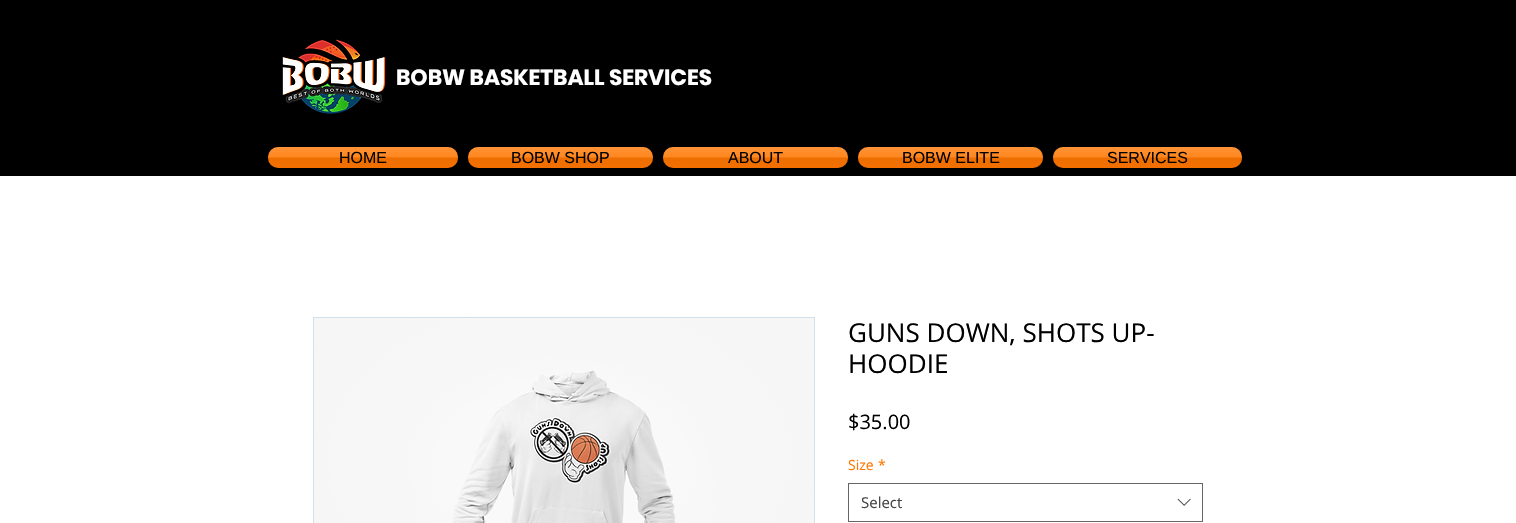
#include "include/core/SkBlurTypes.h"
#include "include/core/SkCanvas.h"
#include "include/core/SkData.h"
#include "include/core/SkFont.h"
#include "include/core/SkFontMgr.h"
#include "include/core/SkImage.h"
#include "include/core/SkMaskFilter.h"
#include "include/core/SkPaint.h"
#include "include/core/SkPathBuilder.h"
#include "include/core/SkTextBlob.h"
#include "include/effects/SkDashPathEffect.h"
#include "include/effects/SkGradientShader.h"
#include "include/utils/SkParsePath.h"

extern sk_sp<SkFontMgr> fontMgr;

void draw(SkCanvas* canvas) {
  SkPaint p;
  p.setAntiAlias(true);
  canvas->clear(SK_ColorWHITE);
  p.setColor(SK_ColorBLACK);
  canvas->drawRect(SkRect::MakeLTRB(0, 0, 1516, 176), p);
  canvas->drawImageRect(SkImages::DeferredFromEncodedData(SkData::MakeFromFileName("images/1.png")), SkRect::MakeLTRB(282, 39, 386, 114), SkSamplingOptions());
  p.setColor(SkColorSetRGB(255, 118, 0));
  canvas->drawRoundRect(SkRect::MakeLTRB(268, 147, 458, 168), 10, 10, p);
  canvas->drawImageRect(SkImages::DeferredFromEncodedData(SkData::MakeFromFileName("images/2.png")), SkRect::MakeLTRB(268, 147, 458, 168), SkSamplingOptions());
  canvas->drawRoundRect(SkRect::MakeLTRB(468, 147, 653, 168), 10, 10, p);
  canvas->drawImageRect(SkImages::DeferredFromEncodedData(SkData::MakeFromFileName("images/3.png")), SkRect::MakeLTRB(468, 147, 653, 168), SkSamplingOptions());
  canvas->drawRoundRect(SkRect::MakeLTRB(663, 147, 848, 168), 10, 10, p);
  canvas->drawImageRect(SkImages::DeferredFromEncodedData(SkData::MakeFromFileName("images/3.png")), SkRect::MakeLTRB(663, 147, 848, 168), SkSamplingOptions());
  canvas->drawRoundRect(SkRect::MakeLTRB(858, 147, 1043, 168), 10, 10, p);
  canvas->drawImageRect(SkImages::DeferredFromEncodedData(SkData::MakeFromFileName("images/3.png")), SkRect::MakeLTRB(858, 147, 1043, 168), SkSamplingOptions());
  canvas->drawRoundRect(SkRect::MakeLTRB(1053, 147, 1242, 168), 10, 10, p);
  canvas->drawImageRect(SkImages::DeferredFromEncodedData(SkData::MakeFromFileName("images/4.png")), SkRect::MakeLTRB(1053, 147, 1242, 168), SkSamplingOptions());
  p.setStyle(SkPaint::kStroke_Style);
  p.setStrokeWidth(1);
  p.setColor(SkColorSetRGB(209, 224, 235));
  canvas->drawRect(SkRect::MakeLTRB(313.5f, 317.5f, 814.5f, 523.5f), p);
  canvas->drawImageRect(SkImages::DeferredFromEncodedData(SkData::MakeFromFileName("images/5.png")), SkRect::MakeLTRB(314, 318, 814, 523), SkSamplingOptions());
  p.setColor(SkColorSetRGB(102, 102, 102));
  canvas->drawRect(SkRect::MakeLTRB(848.5f, 483.5f, 1202.5f, 521.5f), p);
  canvas->drawImageRect(SkImages::DeferredFromEncodedData(SkData::MakeFromFileName("images/6.png")), SkRect::MakeLTRB(1177, 498, 1191, 506), SkSamplingOptions());
  SkFont font1(fontMgr->matchFamilyStyle("Poppins", SkFontStyle::Bold()), 22);
  font1.setSubpixel(true);
  p.setStyle(SkPaint::kFill_Style);
  p.setColor(SK_ColorWHITE);
  canvas->drawString("BOBW BASKETBALL SERVICES", 396, 85, font1, p);
  SkFont font2(fontMgr->matchFamilyStyle("Liberation Sans", SkFontStyle::Normal()), 16);
  font2.setSubpixel(true);
  p.setColor(SK_ColorBLACK);
  canvas->drawString("HOME", 339, 163, font2, p);
  canvas->drawString("BOBW SHOP", 511, 163, font2, p);
  canvas->drawString("ABOUT", 728, 163, font2, p);
  canvas->drawString("BOBW ELITE", 902, 163, font2, p);
  canvas->drawString("SERVICES", 1107, 163, font2, p);
  SkFont font3(fontMgr->matchFamilyStyle("Open Sans", SkFontStyle::Normal()), 26);
  font3.setSubpixel(true);
  canvas->drawString("GUNS DOWN, SHOTS UP-", 848, 342, font3, p);
  canvas->drawString("HOODIE", 848, 373, font3, p);
  SkFont font4(fontMgr->matchFamilyStyle("Open Sans", SkFontStyle::Normal()), 20);
  font4.setSubpixel(true);
  canvas->drawString("$35.00", 848, 429, font4, p);
  SkFont font5(fontMgr->matchFamilyStyle("Open Sans", SkFontStyle::Normal()), 14);
  font5.setSubpixel(true);
  p.setColor(SkColorSetRGB(255, 120, 3));
  canvas->drawString("Size", 848, 470, font5, p);
  canvas->drawString("*", 878, 470, font5, p);
  SkFont font6(fontMgr->matchFamilyStyle("Open Sans", SkFontStyle::Normal()), 15);
  font6.setSubpixel(true);
  p.setColor(SkColorSetRGB(68, 68, 68));
  canvas->drawString("Select", 861, 508, font6, p);
}
